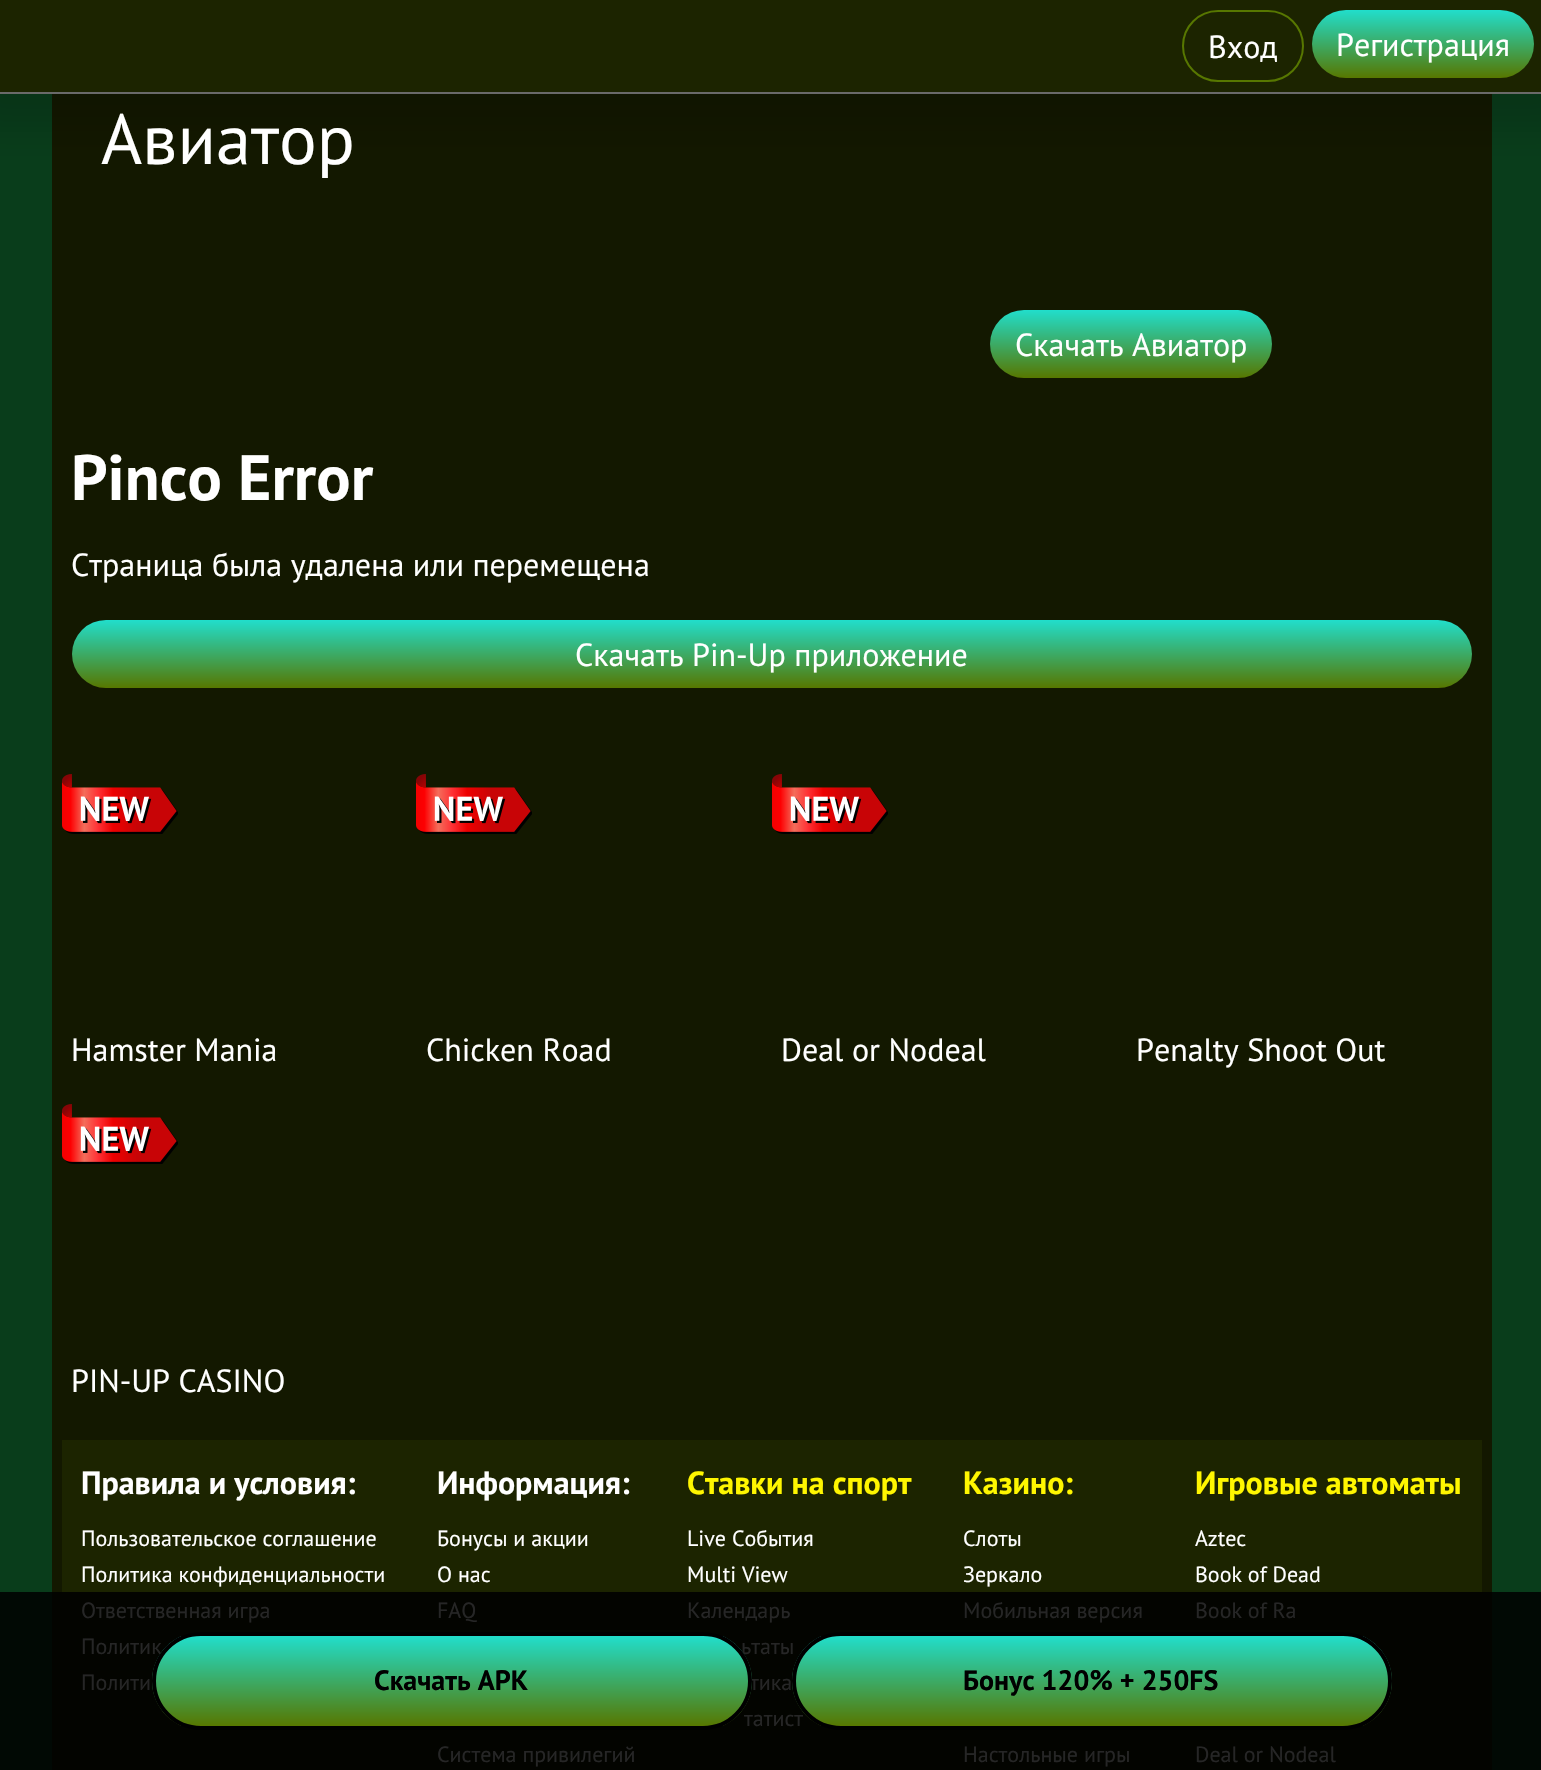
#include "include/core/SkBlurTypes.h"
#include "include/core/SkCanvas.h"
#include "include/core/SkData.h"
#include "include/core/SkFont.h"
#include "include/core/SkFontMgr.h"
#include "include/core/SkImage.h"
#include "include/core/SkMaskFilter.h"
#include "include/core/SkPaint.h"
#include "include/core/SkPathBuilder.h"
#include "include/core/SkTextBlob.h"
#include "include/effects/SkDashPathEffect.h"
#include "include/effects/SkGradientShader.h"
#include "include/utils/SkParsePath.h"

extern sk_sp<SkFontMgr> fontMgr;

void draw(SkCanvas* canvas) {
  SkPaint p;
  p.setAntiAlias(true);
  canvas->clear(SkColorSetRGB(9, 61, 27));
  p.setColor(SkColorSetRGB(1, 9, 4));
  canvas->drawRect(SkRect::MakeLTRB(0, 1592, 1541, 1770), p);
  p.setColor(SkColorSetRGB(19, 24, 0));
  canvas->drawRect(SkRect::MakeLTRB(52, 94, 1492, 1592), p);
  p.setColor(SkColorSetARGB(38, 0, 0, 0));
  p.setMaskFilter(SkMaskFilter::MakeBlur(kNormal_SkBlurStyle, 18));
  canvas->drawRect(SkRect::MakeLTRB(-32, -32, 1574, 126), p);
  p.setMaskFilter(nullptr);
  p.setColor(SkColorSetRGB(28, 36, 0));
  canvas->drawRect(SkRect::MakeLTRB(0, 0, 1541, 92), p);
  p.setColor(SkColorSetRGB(106, 106, 106));
  canvas->drawRect(SkRect::MakeLTRB(0, 92, 1541, 94), p);
  p.setStyle(SkPaint::kStroke_Style);
  p.setStrokeWidth(2);
  p.setColor(SkColorSetRGB(87, 119, 0));
  canvas->drawRoundRect(SkRect::MakeLTRB(1183, 11, 1303, 81), 35, 35, p);
  p.setStyle(SkPaint::kFill_Style);
  {
    const SkColor colors[] = {SkColorSetRGB(33, 222, 203), SkColorSetRGB(87, 119, 0)};
    const float stops[] = {0, 1};
    const SkPoint ends[] = {{1423, 10}, {1423, 78}};
    p.setShader(SkGradientShader::MakeLinear(ends, colors, stops, 2, SkTileMode::kClamp));
    p.setAlpha(255);
  }
  canvas->drawRoundRect(SkRect::MakeLTRB(1312, 10, 1534, 78), 34, 34, p);
  p.setShader(nullptr);
  p.setColor(SkColorSetRGB(3, 4, 0));
  canvas->drawRect(SkRect::MakeLTRB(52, 1592, 1492, 1770), p);
  {
    const SkColor colors[] = {SkColorSetRGB(33, 222, 203), SkColorSetRGB(87, 119, 0)};
    const float stops[] = {0, 1};
    const SkPoint ends[] = {{1131, 310}, {1131, 378}};
    p.setShader(SkGradientShader::MakeLinear(ends, colors, stops, 2, SkTileMode::kClamp));
    p.setAlpha(255);
  }
  canvas->drawRoundRect(SkRect::MakeLTRB(990, 310, 1272, 378), 34, 34, p);
  {
    const SkColor colors[] = {SkColorSetRGB(33, 222, 203), SkColorSetRGB(87, 119, 0)};
    const float stops[] = {0, 1};
    const SkPoint ends[] = {{772, 620}, {772, 688}};
    p.setShader(SkGradientShader::MakeLinear(ends, colors, stops, 2, SkTileMode::kClamp));
    p.setAlpha(255);
  }
  canvas->drawRoundRect(SkRect::MakeLTRB(72, 620, 1472, 688), 34, 34, p);
  canvas->drawImageRect(SkImages::DeferredFromEncodedData(SkData::MakeFromFileName("images/1.png")), SkRect::MakeLTRB(62, 774, 178, 834), SkSamplingOptions());
  canvas->drawImageRect(SkImages::DeferredFromEncodedData(SkData::MakeFromFileName("images/1.png")), SkRect::MakeLTRB(416, 774, 532, 834), SkSamplingOptions());
  canvas->drawImageRect(SkImages::DeferredFromEncodedData(SkData::MakeFromFileName("images/1.png")), SkRect::MakeLTRB(772, 774, 888, 834), SkSamplingOptions());
  canvas->drawImageRect(SkImages::DeferredFromEncodedData(SkData::MakeFromFileName("images/1.png")), SkRect::MakeLTRB(62, 1104, 178, 1164), SkSamplingOptions());
  p.setShader(nullptr);
  p.setColor(SkColorSetRGB(28, 36, 0));
  canvas->drawRect(SkRect::MakeLTRB(62, 1440, 1482, 1592), p);
  SkFont font1(fontMgr->matchFamilyStyle("PT Sans", SkFontStyle::Normal()), 32);
  font1.setSubpixel(true);
  p.setColor(SK_ColorWHITE);
  canvas->drawString("Вход", 1208, 58, font1, p);
  canvas->drawString("Регистрация", 1336, 56, font1, p);
  SkFont font2(fontMgr->matchFamilyStyle("PT Sans", SkFontStyle::Normal()), 70.5f);
  font2.setSubpixel(true);
  canvas->drawString("Авиатор", 101, 164, font2, p);
  canvas->drawString("Скачать Авиатор", 1015, 356, font1, p);
  SkFont font3(fontMgr->matchFamilyStyle("PT Sans", SkFontStyle::Bold()), 64);
  font3.setSubpixel(true);
  canvas->drawString("Pinco Error", 71, 500, font3, p);
  canvas->drawString("Страница была удалена или перемещена", 71, 576, font1, p);
  canvas->drawString("Скачать Pin-Up приложение", 575, 666, font1, p);
  canvas->drawString("Hamster Mania", 71, 1061, font1, p);
  canvas->drawString("Chicken Road", 426, 1061, font1, p);
  canvas->drawString("Deal or Nodeal", 781, 1061, font1, p);
  canvas->drawString("Penalty Shoot Out", 1136, 1061, font1, p);
  canvas->drawString("PIN-UP CASINO", 71, 1392, font1, p);
  SkFont font4(fontMgr->matchFamilyStyle("PT Sans", SkFontStyle::Bold()), 32);
  font4.setSubpixel(true);
  canvas->drawString("Правила и условия:", 81, 1494, font4, p);
  SkFont font5(fontMgr->matchFamilyStyle("PT Sans", SkFontStyle::Normal()), 22);
  font5.setSubpixel(true);
  canvas->drawString("Пользовательское соглашение", 81, 1546, font5, p);
  canvas->drawString("Политика конфиденциальности", 81, 1582, font5, p);
  p.setColor(SkColorSetRGB(38, 38, 38));
  canvas->drawString("Ответственная игра", 81, 1618, font5, p);
  canvas->drawString("Политик", 81, 1654, font5, p);
  canvas->drawString("Полити", 81, 1690, font5, p);
  p.setColor(SK_ColorWHITE);
  canvas->drawString("Информация:", 437, 1494, font4, p);
  canvas->drawString("Бонусы и акции", 437, 1546, font5, p);
  canvas->drawString("О нас", 437, 1582, font5, p);
  p.setColor(SkColorSetRGB(38, 38, 38));
  canvas->drawString("FAQ", 437, 1618, font5, p);
  canvas->drawString("Система привилегий", 437, 1762, font5, p);
  p.setColor(SkColorSetRGB(255, 246, 0));
  canvas->drawString("Ставки на спорт", 687, 1494, font4, p);
  p.setColor(SK_ColorWHITE);
  canvas->drawString("Live События", 687, 1546, font5, p);
  canvas->drawString("Multi View", 687, 1582, font5, p);
  p.setColor(SkColorSetRGB(38, 38, 38));
  canvas->drawString("Календарь", 687, 1618, font5, p);
  canvas->drawString("ьтаты", 741, 1654, font5, p);
  canvas->drawString("тика", 750, 1690, font5, p);
  canvas->drawString("татист", 744, 1726, font5, p);
  p.setColor(SkColorSetRGB(255, 246, 0));
  canvas->drawString("Казино:", 963, 1494, font4, p);
  p.setColor(SK_ColorWHITE);
  canvas->drawString("Слоты", 963, 1546, font5, p);
  canvas->drawString("Зеркало", 963, 1582, font5, p);
  p.setColor(SkColorSetRGB(38, 38, 38));
  canvas->drawString("Мобильная версия", 963, 1618, font5, p);
  canvas->drawString("Настольные игры", 963, 1762, font5, p);
  p.setColor(SkColorSetRGB(255, 246, 0));
  canvas->drawString("Игровые автоматы", 1195, 1494, font4, p);
  p.setColor(SK_ColorWHITE);
  canvas->drawString("Aztec", 1195, 1546, font5, p);
  canvas->drawString("Book of Dead", 1195, 1582, font5, p);
  p.setColor(SkColorSetRGB(38, 38, 38));
  canvas->drawString("Book of Ra", 1195, 1618, font5, p);
  canvas->drawString("Deal or Nodeal", 1195, 1762, font5, p);
  canvas->save();
  canvas->clipPath(SkPathBuilder().moveTo(201, 1632).lineTo(703, 1632).cubicTo(730, 1632, 752, 1654, 752, 1681).cubicTo(752, 1708, 730, 1730, 703, 1730).lineTo(201, 1730).cubicTo(174, 1730, 152, 1708, 152, 1681).cubicTo(152, 1654, 174, 1632, 201, 1632).close().detach(), true);
  {
    const SkColor colors[] = {SkColorSetRGB(33, 222, 203), SkColorSetRGB(87, 119, 0)};
    const float stops[] = {0, 1};
    const SkPoint ends[] = {{452, 1636}, {452, 1726}};
    p.setShader(SkGradientShader::MakeLinear(ends, colors, stops, 2, SkTileMode::kClamp));
    p.setAlpha(255);
  }
  canvas->drawRect(SkRect::MakeLTRB(152, 1636, 752, 1726), p);
  canvas->restore();
  p.setStyle(SkPaint::kStroke_Style);
  p.setStrokeWidth(4);
  p.setShader(nullptr);
  p.setColor(SK_ColorBLACK);
  canvas->drawRoundRect(SkRect::MakeLTRB(154, 1634, 750, 1728), 47, 47, p);
  SkFont font6(fontMgr->matchFamilyStyle("PT Sans", SkFontStyle::Bold()), 28);
  font6.setSubpixel(true);
  p.setStyle(SkPaint::kFill_Style);
  canvas->drawString("Скачать APK", 374, 1690, font6, p);
  canvas->save();
  canvas->clipPath(SkPathBuilder().moveTo(841, 1632).lineTo(1343, 1632).cubicTo(1370, 1632, 1392, 1654, 1392, 1681).cubicTo(1392, 1708, 1370, 1730, 1343, 1730).lineTo(841, 1730).cubicTo(814, 1730, 792, 1708, 792, 1681).cubicTo(792, 1654, 814, 1632, 841, 1632).close().detach(), true);
  {
    const SkColor colors[] = {SkColorSetRGB(33, 222, 203), SkColorSetRGB(87, 119, 0)};
    const float stops[] = {0, 1};
    const SkPoint ends[] = {{1092, 1636}, {1092, 1726}};
    p.setShader(SkGradientShader::MakeLinear(ends, colors, stops, 2, SkTileMode::kClamp));
    p.setAlpha(255);
  }
  canvas->drawRect(SkRect::MakeLTRB(792, 1636, 1392, 1726), p);
  canvas->restore();
  p.setStyle(SkPaint::kStroke_Style);
  p.setShader(nullptr);
  p.setColor(SK_ColorBLACK);
  canvas->drawRoundRect(SkRect::MakeLTRB(794, 1634, 1390, 1728), 47, 47, p);
  p.setStyle(SkPaint::kFill_Style);
  canvas->drawString("Бонус 120% + 250FS", 963, 1690, font6, p);
}
